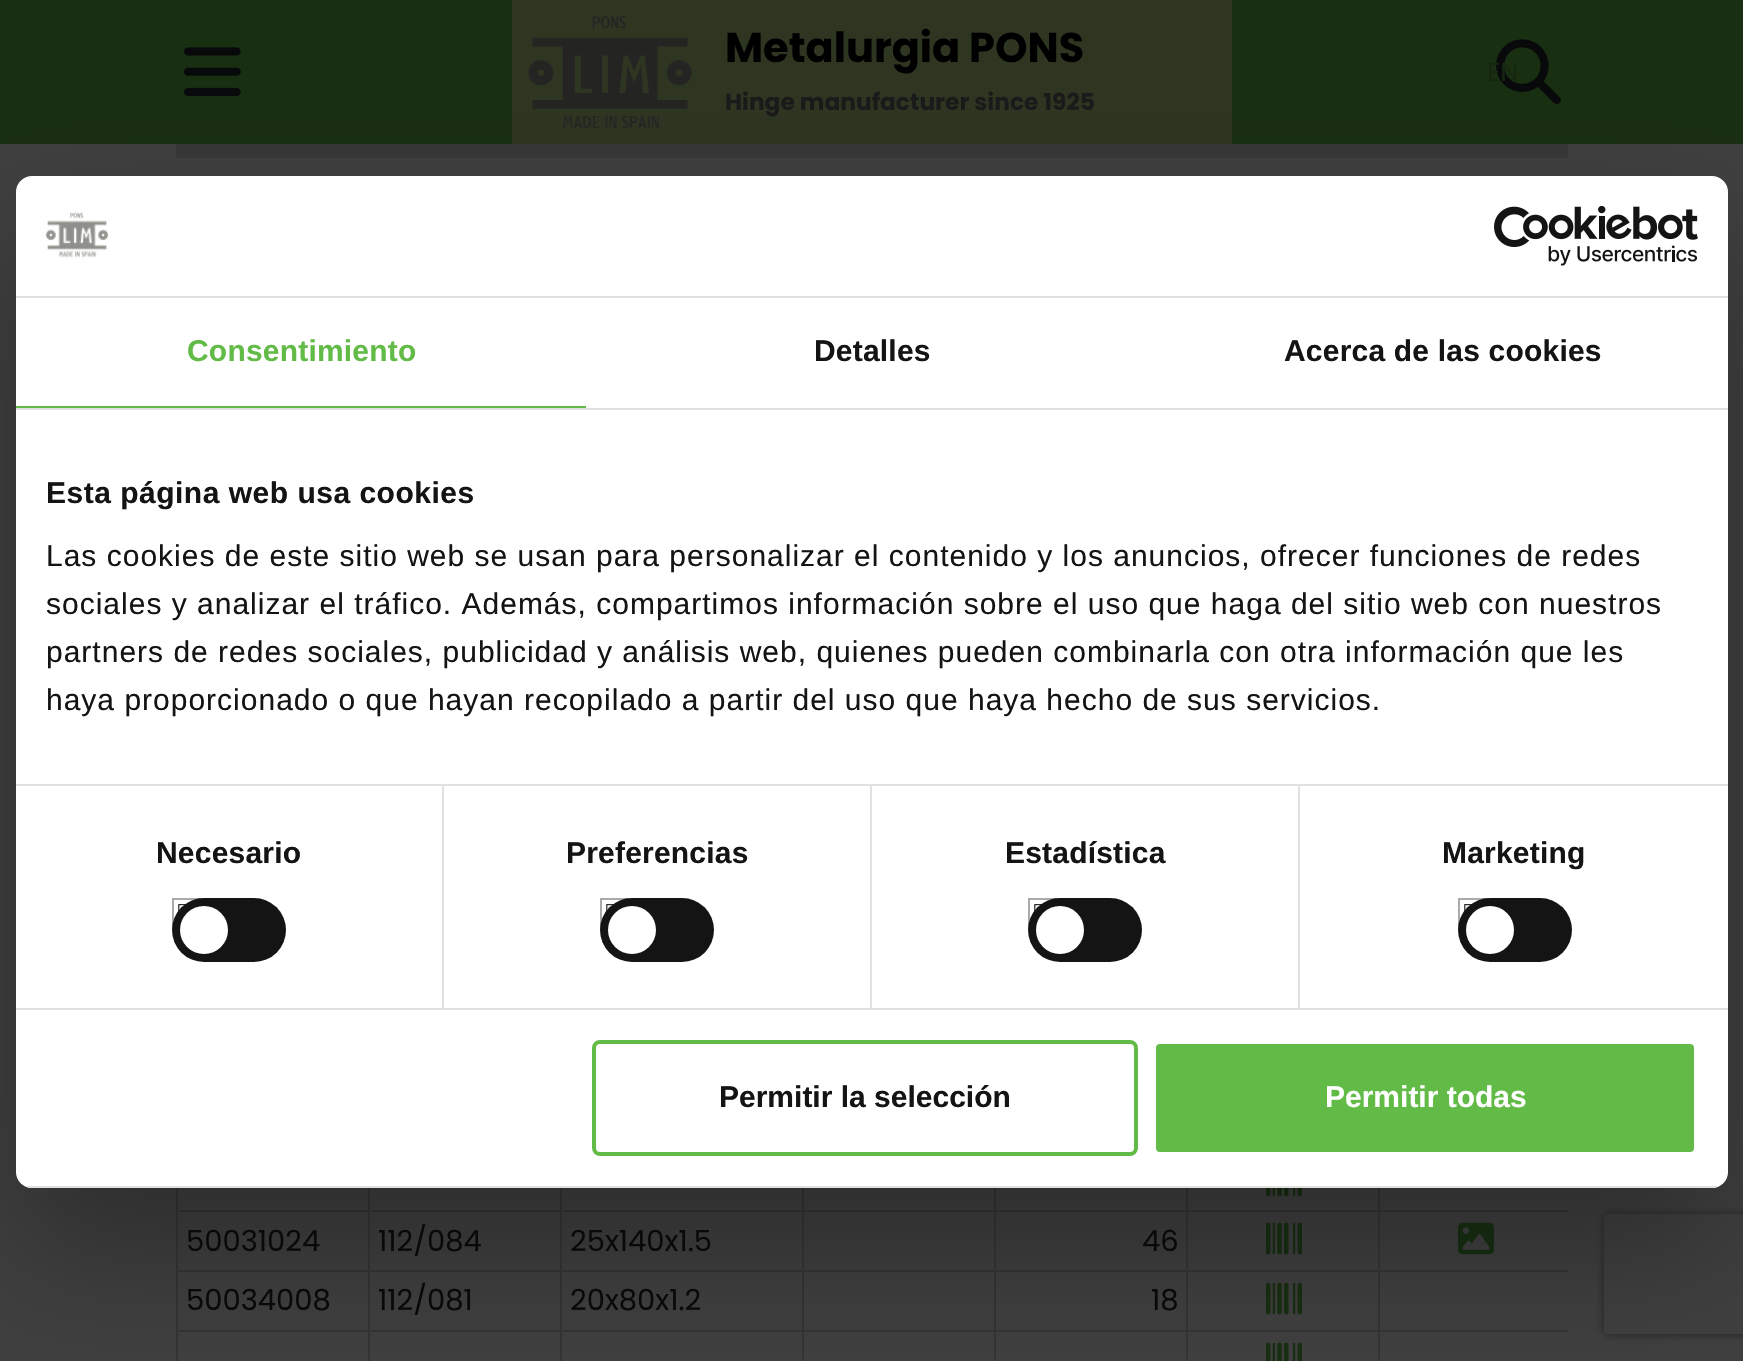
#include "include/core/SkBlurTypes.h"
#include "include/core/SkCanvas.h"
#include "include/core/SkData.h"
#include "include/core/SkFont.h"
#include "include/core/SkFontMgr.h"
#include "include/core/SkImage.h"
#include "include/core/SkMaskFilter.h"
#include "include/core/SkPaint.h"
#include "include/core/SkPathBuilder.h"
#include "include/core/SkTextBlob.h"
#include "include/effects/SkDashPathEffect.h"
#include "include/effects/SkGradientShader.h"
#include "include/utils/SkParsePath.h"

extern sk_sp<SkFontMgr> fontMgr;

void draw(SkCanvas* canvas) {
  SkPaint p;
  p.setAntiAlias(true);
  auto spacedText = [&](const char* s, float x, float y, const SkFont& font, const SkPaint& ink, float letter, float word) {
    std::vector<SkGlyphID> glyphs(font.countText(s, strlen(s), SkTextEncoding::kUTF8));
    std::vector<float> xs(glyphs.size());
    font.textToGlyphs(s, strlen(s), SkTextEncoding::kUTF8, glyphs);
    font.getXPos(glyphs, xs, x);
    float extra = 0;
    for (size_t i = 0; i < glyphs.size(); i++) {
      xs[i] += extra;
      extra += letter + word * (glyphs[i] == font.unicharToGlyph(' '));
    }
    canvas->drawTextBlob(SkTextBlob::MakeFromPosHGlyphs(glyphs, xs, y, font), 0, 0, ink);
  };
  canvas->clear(SkColorSetRGB(64, 64, 64));
  p.setColor(SkColorSetRGB(25, 47, 18));
  canvas->drawRect(SkRect::MakeLTRB(0, 0, 1743, 144), p);
  canvas->drawImageRect(SkImages::DeferredFromEncodedData(SkData::MakeFromFileName("images/1.png")), SkRect::MakeLTRB(184, 47, 241, 96), SkSamplingOptions());
  p.setColor(SkColorSetRGB(46, 54, 34));
  canvas->drawRect(SkRect::MakeLTRB(512, 0, 1232, 144), p);
  canvas->drawImageRect(SkImages::DeferredFromEncodedData(SkData::MakeFromFileName("images/2.png")), SkRect::MakeLTRB(528, 16, 692, 128), SkSamplingOptions());
  canvas->drawImageRect(SkImages::DeferredFromEncodedData(SkData::MakeFromFileName("images/3.png")), SkRect::MakeLTRB(1496, 39, 1561, 105), SkSamplingOptions());
  p.setColor(SkColorSetRGB(56, 56, 56));
  canvas->drawRect(SkRect::MakeLTRB(176, 144, 1568, 158), p);
  p.setColor(SkColorSetRGB(53, 53, 53));
  canvas->drawRect(SkRect::MakeLTRB(176, 1188, 178, 1361), p);
  canvas->drawRect(SkRect::MakeLTRB(1378, 1330, 1380, 1361), p);
  canvas->drawRect(SkRect::MakeLTRB(1378, 1330, 1568, 1332), p);
  canvas->drawRect(SkRect::MakeLTRB(1378, 1270, 1380, 1332), p);
  canvas->drawRect(SkRect::MakeLTRB(1378, 1270, 1568, 1272), p);
  canvas->drawRect(SkRect::MakeLTRB(1378, 1210, 1380, 1272), p);
  canvas->drawRect(SkRect::MakeLTRB(1378, 1210, 1568, 1212), p);
  canvas->drawRect(SkRect::MakeLTRB(1378, 1188, 1380, 1212), p);
  canvas->drawRect(SkRect::MakeLTRB(1186, 1330, 1188, 1361), p);
  canvas->drawRect(SkRect::MakeLTRB(1186, 1330, 1380, 1332), p);
  canvas->drawRect(SkRect::MakeLTRB(1186, 1270, 1188, 1332), p);
  canvas->drawRect(SkRect::MakeLTRB(1186, 1270, 1380, 1272), p);
  canvas->drawRect(SkRect::MakeLTRB(1186, 1210, 1188, 1272), p);
  canvas->drawRect(SkRect::MakeLTRB(1186, 1210, 1380, 1212), p);
  canvas->drawRect(SkRect::MakeLTRB(1186, 1188, 1188, 1212), p);
  canvas->drawRect(SkRect::MakeLTRB(994, 1330, 996, 1361), p);
  canvas->drawRect(SkRect::MakeLTRB(994, 1330, 1188, 1332), p);
  canvas->drawRect(SkRect::MakeLTRB(994, 1270, 996, 1332), p);
  canvas->drawRect(SkRect::MakeLTRB(994, 1270, 1188, 1272), p);
  canvas->drawRect(SkRect::MakeLTRB(994, 1210, 996, 1272), p);
  canvas->drawRect(SkRect::MakeLTRB(994, 1210, 1188, 1212), p);
  canvas->drawRect(SkRect::MakeLTRB(994, 1188, 996, 1212), p);
  canvas->drawRect(SkRect::MakeLTRB(802, 1330, 804, 1361), p);
  canvas->drawRect(SkRect::MakeLTRB(802, 1330, 996, 1332), p);
  canvas->drawRect(SkRect::MakeLTRB(802, 1270, 804, 1332), p);
  canvas->drawRect(SkRect::MakeLTRB(802, 1270, 996, 1272), p);
  canvas->drawRect(SkRect::MakeLTRB(802, 1210, 804, 1272), p);
  canvas->drawRect(SkRect::MakeLTRB(802, 1210, 996, 1212), p);
  canvas->drawRect(SkRect::MakeLTRB(802, 1188, 804, 1212), p);
  canvas->drawRect(SkRect::MakeLTRB(560, 1330, 562, 1361), p);
  canvas->drawRect(SkRect::MakeLTRB(560, 1330, 804, 1332), p);
  canvas->drawRect(SkRect::MakeLTRB(560, 1270, 562, 1332), p);
  canvas->drawRect(SkRect::MakeLTRB(560, 1270, 804, 1272), p);
  canvas->drawRect(SkRect::MakeLTRB(560, 1210, 562, 1272), p);
  canvas->drawRect(SkRect::MakeLTRB(560, 1210, 804, 1212), p);
  canvas->drawRect(SkRect::MakeLTRB(560, 1188, 562, 1212), p);
  canvas->drawRect(SkRect::MakeLTRB(368, 1330, 370, 1361), p);
  canvas->drawRect(SkRect::MakeLTRB(368, 1330, 562, 1332), p);
  canvas->drawRect(SkRect::MakeLTRB(368, 1270, 370, 1332), p);
  canvas->drawRect(SkRect::MakeLTRB(368, 1270, 562, 1272), p);
  canvas->drawRect(SkRect::MakeLTRB(368, 1210, 370, 1272), p);
  canvas->drawRect(SkRect::MakeLTRB(368, 1210, 562, 1212), p);
  canvas->drawRect(SkRect::MakeLTRB(368, 1188, 370, 1212), p);
  canvas->drawRect(SkRect::MakeLTRB(176, 1210, 370, 1212), p);
  canvas->drawImageRect(SkImages::DeferredFromEncodedData(SkData::MakeFromFileName("images/7.png")), SkRect::MakeLTRB(1266, 1188, 1302, 1197), SkSamplingOptions());
  canvas->drawRect(SkRect::MakeLTRB(176, 1270, 370, 1272), p);
  canvas->drawImageRect(SkImages::DeferredFromEncodedData(SkData::MakeFromFileName("images/8.png")), SkRect::MakeLTRB(1266, 1222, 1302, 1255), SkSamplingOptions());
  canvas->drawImageRect(SkImages::DeferredFromEncodedData(SkData::MakeFromFileName("images/9.png")), SkRect::MakeLTRB(1458, 1222, 1494, 1255), SkSamplingOptions());
  canvas->drawRect(SkRect::MakeLTRB(176, 1330, 370, 1332), p);
  canvas->drawImageRect(SkImages::DeferredFromEncodedData(SkData::MakeFromFileName("images/8.png")), SkRect::MakeLTRB(1266, 1282, 1302, 1315), SkSamplingOptions());
  canvas->drawImageRect(SkImages::DeferredFromEncodedData(SkData::MakeFromFileName("images/10.png")), SkRect::MakeLTRB(1266, 1342, 1302, 1361), SkSamplingOptions());
  p.setColor(SkColorSetARGB(77, 0, 0, 0));
  p.setMaskFilter(SkMaskFilter::MakeBlur(kNormal_SkBlurStyle, 68));
  canvas->drawRoundRect(SkRect::MakeLTRB(16, 240, 1728, 1252), 16, 16, p);
  p.setMaskFilter(nullptr);
  p.setColor(SK_ColorWHITE);
  canvas->drawRoundRect(SkRect::MakeLTRB(16, 176, 1728, 1188), 16, 16, p);
  p.setColor(SkColorSetRGB(225, 225, 225));
  canvas->drawRect(SkRect::MakeLTRB(16, 296, 1728, 298), p);
  canvas->drawImageRect(SkImages::DeferredFromEncodedData(SkData::MakeFromFileName("images/4.png")), SkRect::MakeLTRB(46, 212, 108, 258), SkSamplingOptions());
  canvas->drawImageRect(SkImages::DeferredFromEncodedData(SkData::MakeFromFileName("images/5.png")), SkRect::MakeLTRB(1494, 206, 1698, 266), SkSamplingOptions());
  canvas->drawRect(SkRect::MakeLTRB(16, 408, 1728, 410), p);
  p.setColor(SkColorSetRGB(98, 187, 70));
  canvas->drawRect(SkRect::MakeLTRB(16, 406, 586, 408), p);
  p.setColor(SkColorSetRGB(225, 225, 225));
  canvas->drawRect(SkRect::MakeLTRB(16, 784, 1728, 786), p);
  canvas->drawRect(SkRect::MakeLTRB(16, 1008, 1728, 1010), p);
  canvas->drawRect(SkRect::MakeLTRB(442, 786, 444, 1008), p);
  p.setStyle(SkPaint::kStroke_Style);
  p.setStrokeWidth(2);
  p.setColor(SkColorSetRGB(170, 170, 170));
  canvas->drawRect(SkRect::MakeLTRB(173, 899, 201, 927), p);
  canvas->drawImageRect(SkImages::DeferredFromEncodedData(SkData::MakeFromFileName("images/6.png")), SkRect::MakeLTRB(178, 904, 186, 912), SkSamplingOptions());
  p.setStyle(SkPaint::kFill_Style);
  p.setColor(SkColorSetRGB(20, 20, 20));
  canvas->drawRoundRect(SkRect::MakeLTRB(172, 898, 286, 962), 32, 32, p);
  p.setColor(SK_ColorWHITE);
  canvas->drawCircle(204, 930, 24, p);
  p.setColor(SkColorSetRGB(225, 225, 225));
  canvas->drawRect(SkRect::MakeLTRB(870, 786, 872, 1008), p);
  p.setStyle(SkPaint::kStroke_Style);
  p.setColor(SkColorSetRGB(170, 170, 170));
  canvas->drawRect(SkRect::MakeLTRB(601, 899, 629, 927), p);
  canvas->drawImageRect(SkImages::DeferredFromEncodedData(SkData::MakeFromFileName("images/6.png")), SkRect::MakeLTRB(606, 904, 614, 912), SkSamplingOptions());
  p.setStyle(SkPaint::kFill_Style);
  p.setColor(SkColorSetRGB(20, 20, 20));
  canvas->drawRoundRect(SkRect::MakeLTRB(600, 898, 714, 962), 32, 32, p);
  p.setColor(SK_ColorWHITE);
  canvas->drawCircle(632, 930, 24, p);
  p.setColor(SkColorSetRGB(225, 225, 225));
  canvas->drawRect(SkRect::MakeLTRB(1298, 786, 1300, 1008), p);
  p.setStyle(SkPaint::kStroke_Style);
  p.setColor(SkColorSetRGB(170, 170, 170));
  canvas->drawRect(SkRect::MakeLTRB(1029, 899, 1057, 927), p);
  canvas->drawImageRect(SkImages::DeferredFromEncodedData(SkData::MakeFromFileName("images/6.png")), SkRect::MakeLTRB(1034, 904, 1042, 912), SkSamplingOptions());
  p.setStyle(SkPaint::kFill_Style);
  p.setColor(SkColorSetRGB(20, 20, 20));
  canvas->drawRoundRect(SkRect::MakeLTRB(1028, 898, 1142, 962), 32, 32, p);
  p.setColor(SK_ColorWHITE);
  canvas->drawCircle(1060, 930, 24, p);
  p.setStyle(SkPaint::kStroke_Style);
  p.setColor(SkColorSetRGB(170, 170, 170));
  canvas->drawRect(SkRect::MakeLTRB(1459, 899, 1487, 927), p);
  canvas->drawImageRect(SkImages::DeferredFromEncodedData(SkData::MakeFromFileName("images/6.png")), SkRect::MakeLTRB(1464, 904, 1472, 912), SkSamplingOptions());
  p.setStyle(SkPaint::kFill_Style);
  p.setColor(SkColorSetRGB(20, 20, 20));
  canvas->drawRoundRect(SkRect::MakeLTRB(1458, 898, 1572, 962), 32, 32, p);
  p.setColor(SK_ColorWHITE);
  canvas->drawCircle(1490, 930, 24, p);
  canvas->save();
  canvas->clipPath(SkPathBuilder().moveTo(32, 176).lineTo(1712, 176).cubicTo(1721, 176, 1728, 183, 1728, 192).lineTo(1728, 1172).cubicTo(1728, 1181, 1721, 1188, 1712, 1188).lineTo(32, 1188).cubicTo(23, 1188, 16, 1181, 16, 1172).lineTo(16, 192).cubicTo(16, 183, 23, 176, 32, 176).close().detach(), true);
  p.setColor(SkColorSetRGB(225, 225, 225));
  canvas->drawRect(SkRect::MakeLTRB(16, 1186, 1728, 1188), p);
  canvas->restore();
  p.setStyle(SkPaint::kStroke_Style);
  p.setStrokeWidth(4);
  p.setColor(SkColorSetRGB(98, 187, 70));
  canvas->drawRoundRect(SkRect::MakeLTRB(594, 1042, 1136, 1154), 6, 6, p);
  p.setStyle(SkPaint::kFill_Style);
  canvas->drawRoundRect(SkRect::MakeLTRB(1154, 1042, 1696, 1154), 6, 6, p);
  p.setStyle(SkPaint::kStroke_Style);
  p.setColor(SK_ColorWHITE);
  canvas->drawRoundRect(SkRect::MakeLTRB(1154, 1042, 1696, 1154), 6, 6, p);
  canvas->save();
  canvas->clipPath(SkPathBuilder(SkPathFillType::kEvenOdd).moveTo(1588, 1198).lineTo(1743, 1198).lineTo(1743, 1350).lineTo(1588, 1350).close().moveTo(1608, 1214).lineTo(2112, 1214).cubicTo(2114, 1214, 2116, 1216, 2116, 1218).lineTo(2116, 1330).cubicTo(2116, 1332, 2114, 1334, 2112, 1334).lineTo(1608, 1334).cubicTo(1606, 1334, 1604, 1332, 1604, 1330).lineTo(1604, 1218).cubicTo(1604, 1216, 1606, 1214, 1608, 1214).close().detach(), true);
  p.setStyle(SkPaint::kFill_Style);
  p.setColor(SkColorSetRGB(32, 32, 32));
  p.setMaskFilter(SkMaskFilter::MakeBlur(kNormal_SkBlurStyle, 5));
  canvas->drawRoundRect(SkRect::MakeLTRB(1604, 1214, 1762, 1334), 4, 4, p);
  p.setMaskFilter(nullptr);
  canvas->restore();
  SkFont font1(fontMgr->matchFamilyStyle("Poppins", SkFontStyle::Bold()), 41.5f);
  font1.setSubpixel(true);
  p.setColor(SK_ColorBLACK);
  canvas->drawString("Metalurgia PONS", 725, 62, font1, p);
  SkFont font2(fontMgr->matchFamilyStyle("Poppins", SkFontStyle::Bold()), 23.3f);
  font2.setSubpixel(true);
  p.setColor(SkColorSetRGB(26, 26, 26));
  canvas->drawString("Hinge manufacturer since 1925", 725, 110, font2, p);
  SkFont font3(fontMgr->matchFamilyStyle("Poppins", SkFontStyle::Normal()), 26);
  font3.setSubpixel(true);
  p.setColor(SkColorSetRGB(21, 39, 16));
  canvas->drawString("EN", 1487, 81, font3, p);
  SkFont font4(fontMgr->matchFamilyStyle("Liberation Sans", SkFontStyle::Bold()), 30);
  font4.setSubpixel(true);
  p.setColor(SkColorSetRGB(98, 187, 70));
  spacedText("Consentimiento", 187, 361, font4, p, 0.2f, 0);
  p.setColor(SkColorSetRGB(20, 20, 20));
  spacedText("Detalles", 814, 361, font4, p, 0.2f, 0);
  spacedText("Acerca de las cookies", 1284, 361, font4, p, 0.2f, 0);
  spacedText("Esta página web usa cookies", 46, 503, font4, p, 0.5f, 0);
  SkFont font5(fontMgr->matchFamilyStyle("Liberation Sans", SkFontStyle::Normal()), 30);
  font5.setSubpixel(true);
  spacedText("Las cookies de este sitio web se usan para personalizar el contenido y los anuncios, ofrecer funciones de redes", 46, 566, font5, p, 1, 0);
  spacedText("sociales y analizar el tráfico. Además, compartimos información sobre el uso que haga del sitio web con nuestros", 46, 614, font5, p, 1, 0);
  spacedText("partners de redes sociales, publicidad y análisis web, quienes pueden combinarla con otra información que les", 46, 662, font5, p, 1, 0);
  spacedText("haya proporcionado o que hayan recopilado a partir del uso que haya hecho de sus servicios.", 46, 710, font5, p, 1, 0);
  spacedText("Necesario", 156, 863, font4, p, 0.2f, 0);
  spacedText("Preferencias", 566, 863, font4, p, 0.2f, 0);
  spacedText("Estadística", 1005, 863, font4, p, 0.2f, 0);
  spacedText("Marketing", 1442, 863, font4, p, 0.2f, 0);
  canvas->drawString("Permitir la selección", 719, 1107, font4, p);
  p.setColor(SK_ColorWHITE);
  canvas->drawString("Permitir todas", 1325, 1107, font4, p);
  SkFont font6(fontMgr->matchFamilyStyle("Poppins", SkFontStyle::Normal()), 29);
  font6.setSubpixel(true);
  p.setColor(SkColorSetRGB(8, 9, 10));
  canvas->drawString("50031024", 186, 1251, font6, p);
  canvas->drawString("112/084", 378, 1251, font6, p);
  canvas->drawString("25x140x1.5", 570, 1251, font6, p);
  canvas->drawString("46", 1142, 1251, font6, p);
  canvas->drawString("50034008", 186, 1310, font6, p);
  canvas->drawString("112/081", 378, 1310, font6, p);
  canvas->drawString("20x80x1.2", 570, 1310, font6, p);
  canvas->drawString("18", 1151, 1310, font6, p);
}
